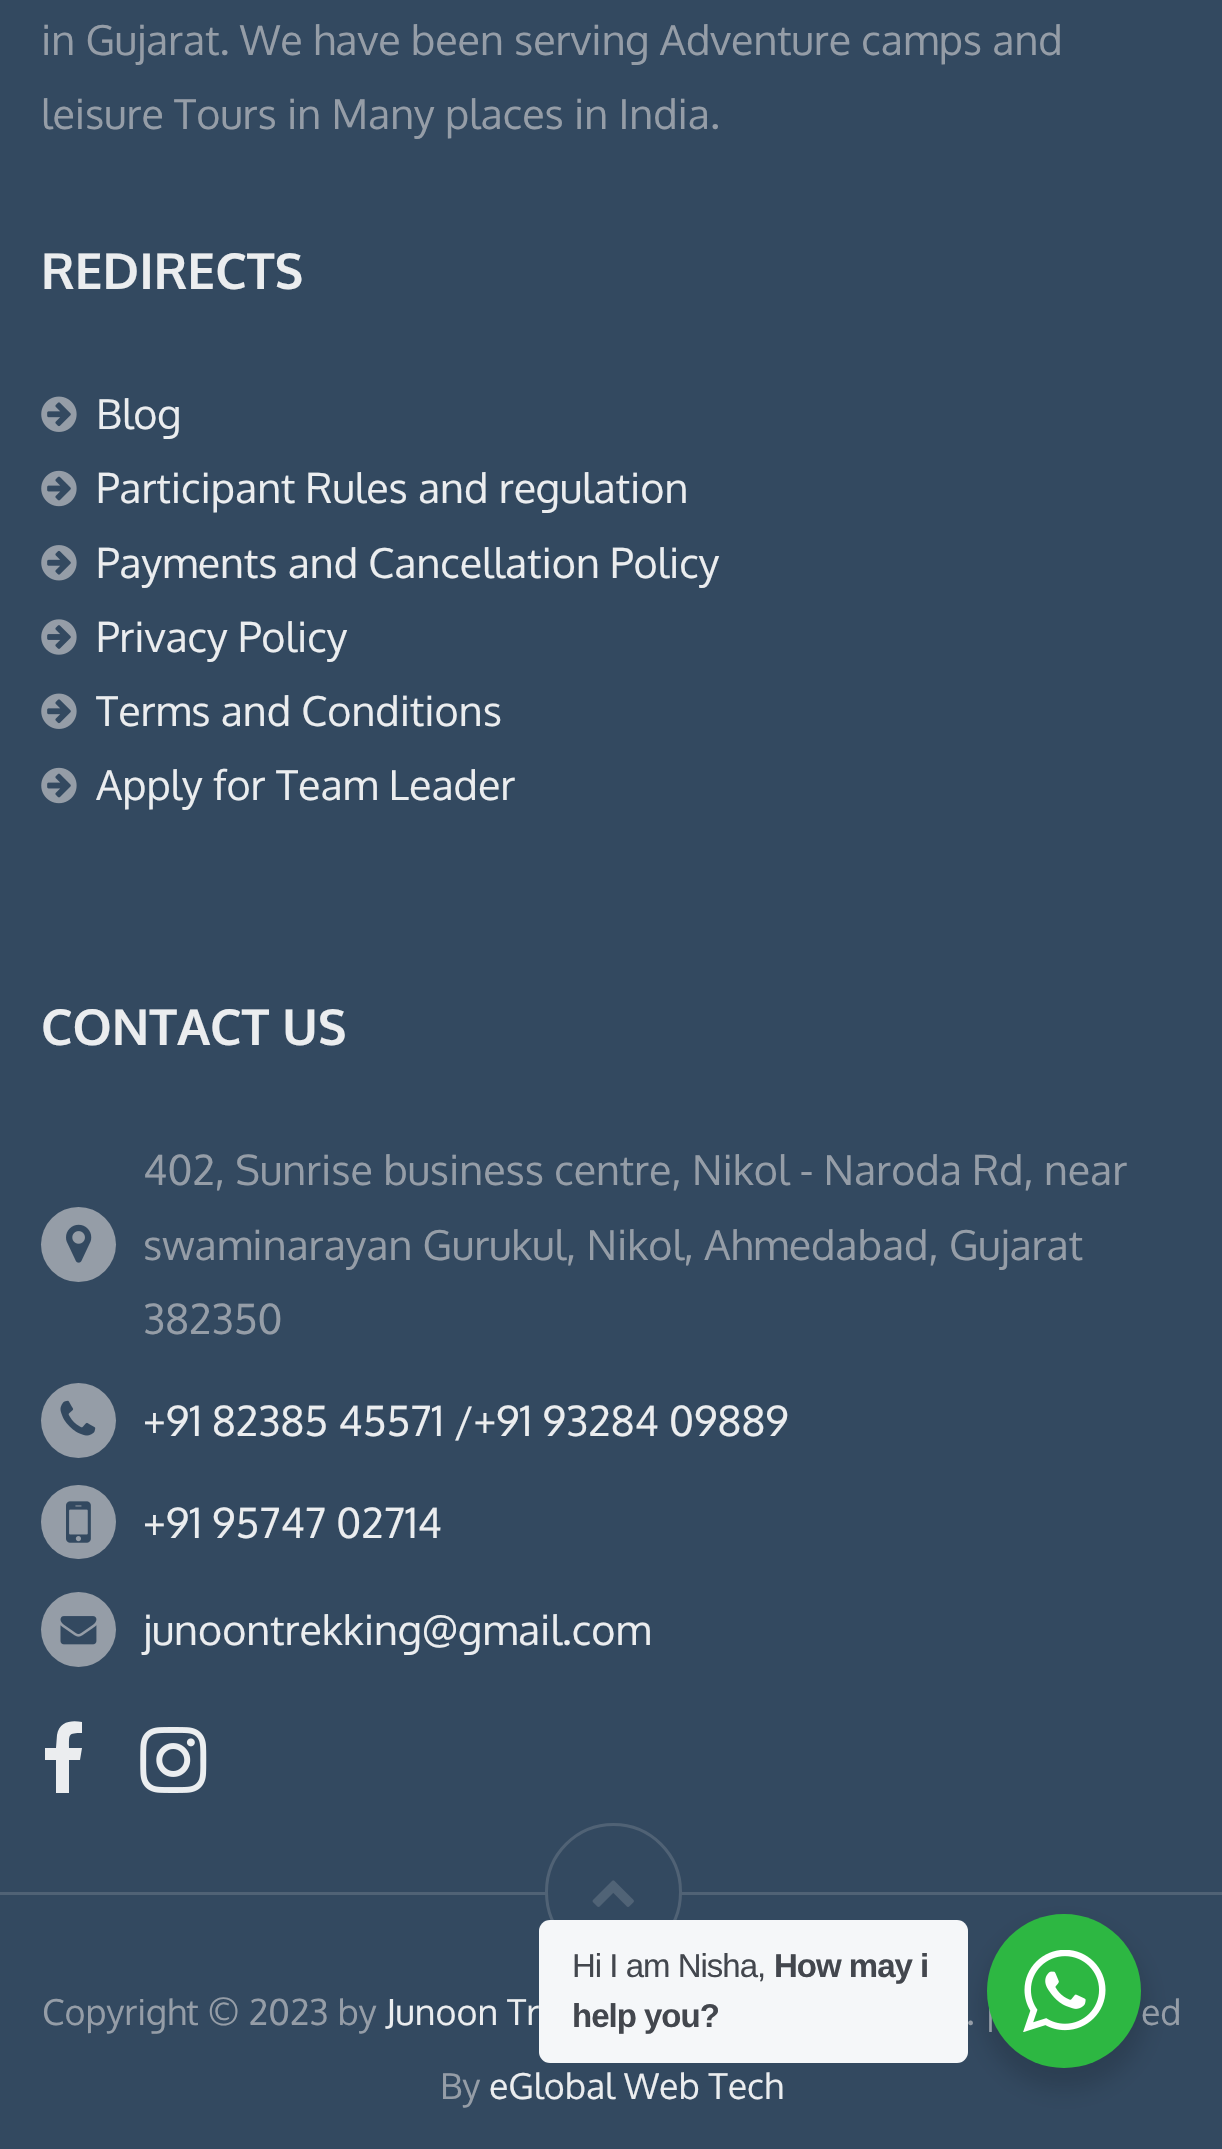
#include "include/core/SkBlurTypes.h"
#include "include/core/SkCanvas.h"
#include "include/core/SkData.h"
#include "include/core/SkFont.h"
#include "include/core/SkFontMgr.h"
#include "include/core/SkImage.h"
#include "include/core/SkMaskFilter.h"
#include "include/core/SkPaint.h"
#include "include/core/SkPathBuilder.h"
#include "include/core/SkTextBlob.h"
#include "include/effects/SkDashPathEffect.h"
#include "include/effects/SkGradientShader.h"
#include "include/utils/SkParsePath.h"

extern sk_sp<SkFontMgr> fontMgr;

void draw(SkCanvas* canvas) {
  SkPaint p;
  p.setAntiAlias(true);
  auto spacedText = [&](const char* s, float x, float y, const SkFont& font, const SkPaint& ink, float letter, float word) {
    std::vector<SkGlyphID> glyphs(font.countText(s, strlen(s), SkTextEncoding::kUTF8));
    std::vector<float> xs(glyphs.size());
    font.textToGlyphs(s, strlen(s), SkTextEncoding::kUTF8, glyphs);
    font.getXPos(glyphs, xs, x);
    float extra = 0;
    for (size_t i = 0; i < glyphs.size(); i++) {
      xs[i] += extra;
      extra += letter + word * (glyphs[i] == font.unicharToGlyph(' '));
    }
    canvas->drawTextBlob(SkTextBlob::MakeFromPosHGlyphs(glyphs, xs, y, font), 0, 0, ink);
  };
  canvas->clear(SkColorSetRGB(51, 73, 96));
  canvas->drawImageRect(SkImages::DeferredFromEncodedData(SkData::MakeFromFileName("images/1.png")), SkRect::MakeLTRB(41, 396, 77, 432), SkSamplingOptions());
  canvas->drawImageRect(SkImages::DeferredFromEncodedData(SkData::MakeFromFileName("images/2.png")), SkRect::MakeLTRB(41, 470, 77, 507), SkSamplingOptions());
  canvas->drawImageRect(SkImages::DeferredFromEncodedData(SkData::MakeFromFileName("images/3.png")), SkRect::MakeLTRB(41, 545, 77, 581), SkSamplingOptions());
  canvas->drawImageRect(SkImages::DeferredFromEncodedData(SkData::MakeFromFileName("images/4.png")), SkRect::MakeLTRB(41, 619, 77, 655), SkSamplingOptions());
  canvas->drawImageRect(SkImages::DeferredFromEncodedData(SkData::MakeFromFileName("images/1.png")), SkRect::MakeLTRB(41, 693, 77, 729), SkSamplingOptions());
  canvas->drawImageRect(SkImages::DeferredFromEncodedData(SkData::MakeFromFileName("images/2.png")), SkRect::MakeLTRB(41, 767, 77, 804), SkSamplingOptions());
  p.setColor(SkColorSetRGB(149, 157, 167));
  canvas->drawCircle(78.5f, 1244.5f, 37.5f, p);
  canvas->drawImageRect(SkImages::DeferredFromEncodedData(SkData::MakeFromFileName("images/5.png")), SkRect::MakeLTRB(66, 1224, 92, 1263), SkSamplingOptions());
  canvas->drawCircle(78.5f, 1420.5f, 37.5f, p);
  canvas->drawImageRect(SkImages::DeferredFromEncodedData(SkData::MakeFromFileName("images/6.png")), SkRect::MakeLTRB(60, 1400, 96, 1436), SkSamplingOptions());
  canvas->drawRoundRect(SkRect::MakeLTRB(41, 1485, 116, 1559), 37, 37, p);
  canvas->drawImageRect(SkImages::DeferredFromEncodedData(SkData::MakeFromFileName("images/7.png")), SkRect::MakeLTRB(66, 1501, 91, 1543), SkSamplingOptions());
  canvas->drawCircle(78.5f, 1629.5f, 37.5f, p);
  canvas->drawImageRect(SkImages::DeferredFromEncodedData(SkData::MakeFromFileName("images/8.png")), SkRect::MakeLTRB(60, 1616, 97, 1645), SkSamplingOptions());
  p.setColor(SkColorSetRGB(235, 237, 239));
  canvas->drawPath(SkPathBuilder().moveTo(82, 1722).lineTo(82, 1733).cubicTo(68, 1733, 69, 1734, 69, 1748).lineTo(82, 1748).lineTo(80, 1760).lineTo(69, 1760).lineTo(69, 1793).lineTo(56, 1793).lineTo(56, 1760).lineTo(45, 1760).lineTo(45, 1748).lineTo(56, 1748).lineTo(57, 1735).cubicTo(59, 1721, 72, 1720, 82, 1722).close().detach(), p);
  canvas->drawImageRect(SkImages::DeferredFromEncodedData(SkData::MakeFromFileName("images/9.png")), SkRect::MakeLTRB(140, 1727, 207, 1793), SkSamplingOptions());
  p.setColor(SkColorSetRGB(80, 98, 117));
  canvas->drawRect(SkRect::MakeLTRB(0, 1892, 1222, 1895), p);
  p.setColor(SkColorSetRGB(51, 73, 96));
  canvas->drawRoundRect(SkRect::MakeLTRB(546.5f, 1824.5f, 680.5f, 1959.5f), 67, 67, p);
  p.setStyle(SkPaint::kStroke_Style);
  p.setStrokeWidth(3);
  p.setColor(SkColorSetRGB(80, 98, 117));
  canvas->drawRoundRect(SkRect::MakeLTRB(546.5f, 1824.5f, 680.5f, 1959.5f), 67, 67, p);
  canvas->drawImageRect(SkImages::DeferredFromEncodedData(SkData::MakeFromFileName("images/10.png")), SkRect::MakeLTRB(592, 1880, 634, 1907), SkSamplingOptions());
  p.setStyle(SkPaint::kFill_Style);
  p.setColor(SkColorSetARGB(36, 0, 0, 0));
  p.setMaskFilter(SkMaskFilter::MakeBlur(kNormal_SkBlurStyle, 11));
  canvas->drawRoundRect(SkRect::MakeLTRB(982, 1925, 1147, 2090), 82.5f, 82.5f, p);
  p.setMaskFilter(nullptr);
  p.setColor(SkColorSetRGB(245, 247, 249));
  canvas->drawRoundRect(SkRect::MakeLTRB(539, 1920, 968, 2063), 11, 11, p);
  SkFont font1(fontMgr->matchFamilyStyle("Oxygen", SkFontStyle::Normal()), 41.25f);
  font1.setSubpixel(true);
  p.setColor(SkColorSetRGB(149, 157, 167));
  canvas->drawString("in Gujarat. We have been serving Adventure camps and", 41, 55, font1, p);
  canvas->drawString("leisure Tours in Many places in India.", 41, 129, font1, p);
  SkFont font2(fontMgr->matchFamilyStyle("Oxygen", SkFontStyle::Bold()), 49.5f);
  font2.setSubpixel(true);
  p.setColor(SkColorSetRGB(235, 237, 239));
  canvas->drawString("REDIRECTS", 41, 289, font2, p);
  canvas->drawString("Blog", 96, 429, font1, p);
  canvas->drawString("Participant Rules and regulation", 96, 503, font1, p);
  canvas->drawString("Payments and Cancellation Policy", 96, 578, font1, p);
  canvas->drawString("Privacy Policy", 96, 652, font1, p);
  canvas->drawString("Terms and Conditions", 96, 726, font1, p);
  canvas->drawString("Apply for Team Leader", 96, 800, font1, p);
  canvas->drawString("CONTACT US", 41, 1045, font2, p);
  p.setColor(SkColorSetRGB(149, 157, 167));
  canvas->drawString("402, Sunrise business centre, Nikol - Naroda Rd, near", 143, 1185, font1, p);
  canvas->drawString("swaminarayan Gurukul, Nikol, Ahmedabad, Gujarat", 143, 1260, font1, p);
  canvas->drawString("382350", 143, 1334, font1, p);
  p.setColor(SkColorSetRGB(235, 237, 239));
  canvas->drawString("+91 82385 45571 /+91 93284 09889", 143, 1436, font1, p);
  canvas->drawString("+91 95747 02714", 143, 1538, font1, p);
  canvas->drawString("junoontrekking@gmail.com", 143, 1645, font1, p);
  SkFont font3(fontMgr->matchFamilyStyle("Oxygen", SkFontStyle::Normal()), 35.75f);
  font3.setSubpixel(true);
  p.setColor(SkColorSetRGB(149, 157, 167));
  canvas->drawString("Copyright © 2023 by", 42, 2025, font3, p);
  p.setColor(SkColorSetRGB(235, 237, 239));
  canvas->drawString("Junoon Tr", 386, 2025, font3, p);
  p.setColor(SkColorSetRGB(149, 157, 167));
  canvas->drawString(". |", 966, 2025, font3, p);
  canvas->drawString("ed", 1141, 2025, font3, p);
  canvas->drawString("By", 440, 2099, font3, p);
  p.setColor(SkColorSetRGB(235, 237, 239));
  canvas->drawString("eGlobal Web Tech", 489, 2099, font3, p);
  SkFont font4(fontMgr->matchFamilyStyle("Liberation Sans", SkFontStyle::Normal()), 33);
  font4.setSubpixel(true);
  p.setColor(SkColorSetRGB(67, 71, 78));
  spacedText("Hi I am Nisha,", 572, 1977, font4, p, -1, 0);
  SkFont font5(fontMgr->matchFamilyStyle("Liberation Sans", SkFontStyle::Bold()), 33);
  font5.setSubpixel(true);
  spacedText("How may i", 774, 1977, font5, p, -1, 0);
  spacedText("help you?", 572, 2027, font5, p, -1, 0);
  p.setColor(SkColorSetRGB(45, 183, 66));
  canvas->drawCircle(1064, 1991, 77, p);
  canvas->drawImageRect(SkImages::DeferredFromEncodedData(SkData::MakeFromFileName("images/11.png")), SkRect::MakeLTRB(1023, 1950, 1106, 2032), SkSamplingOptions());
}
